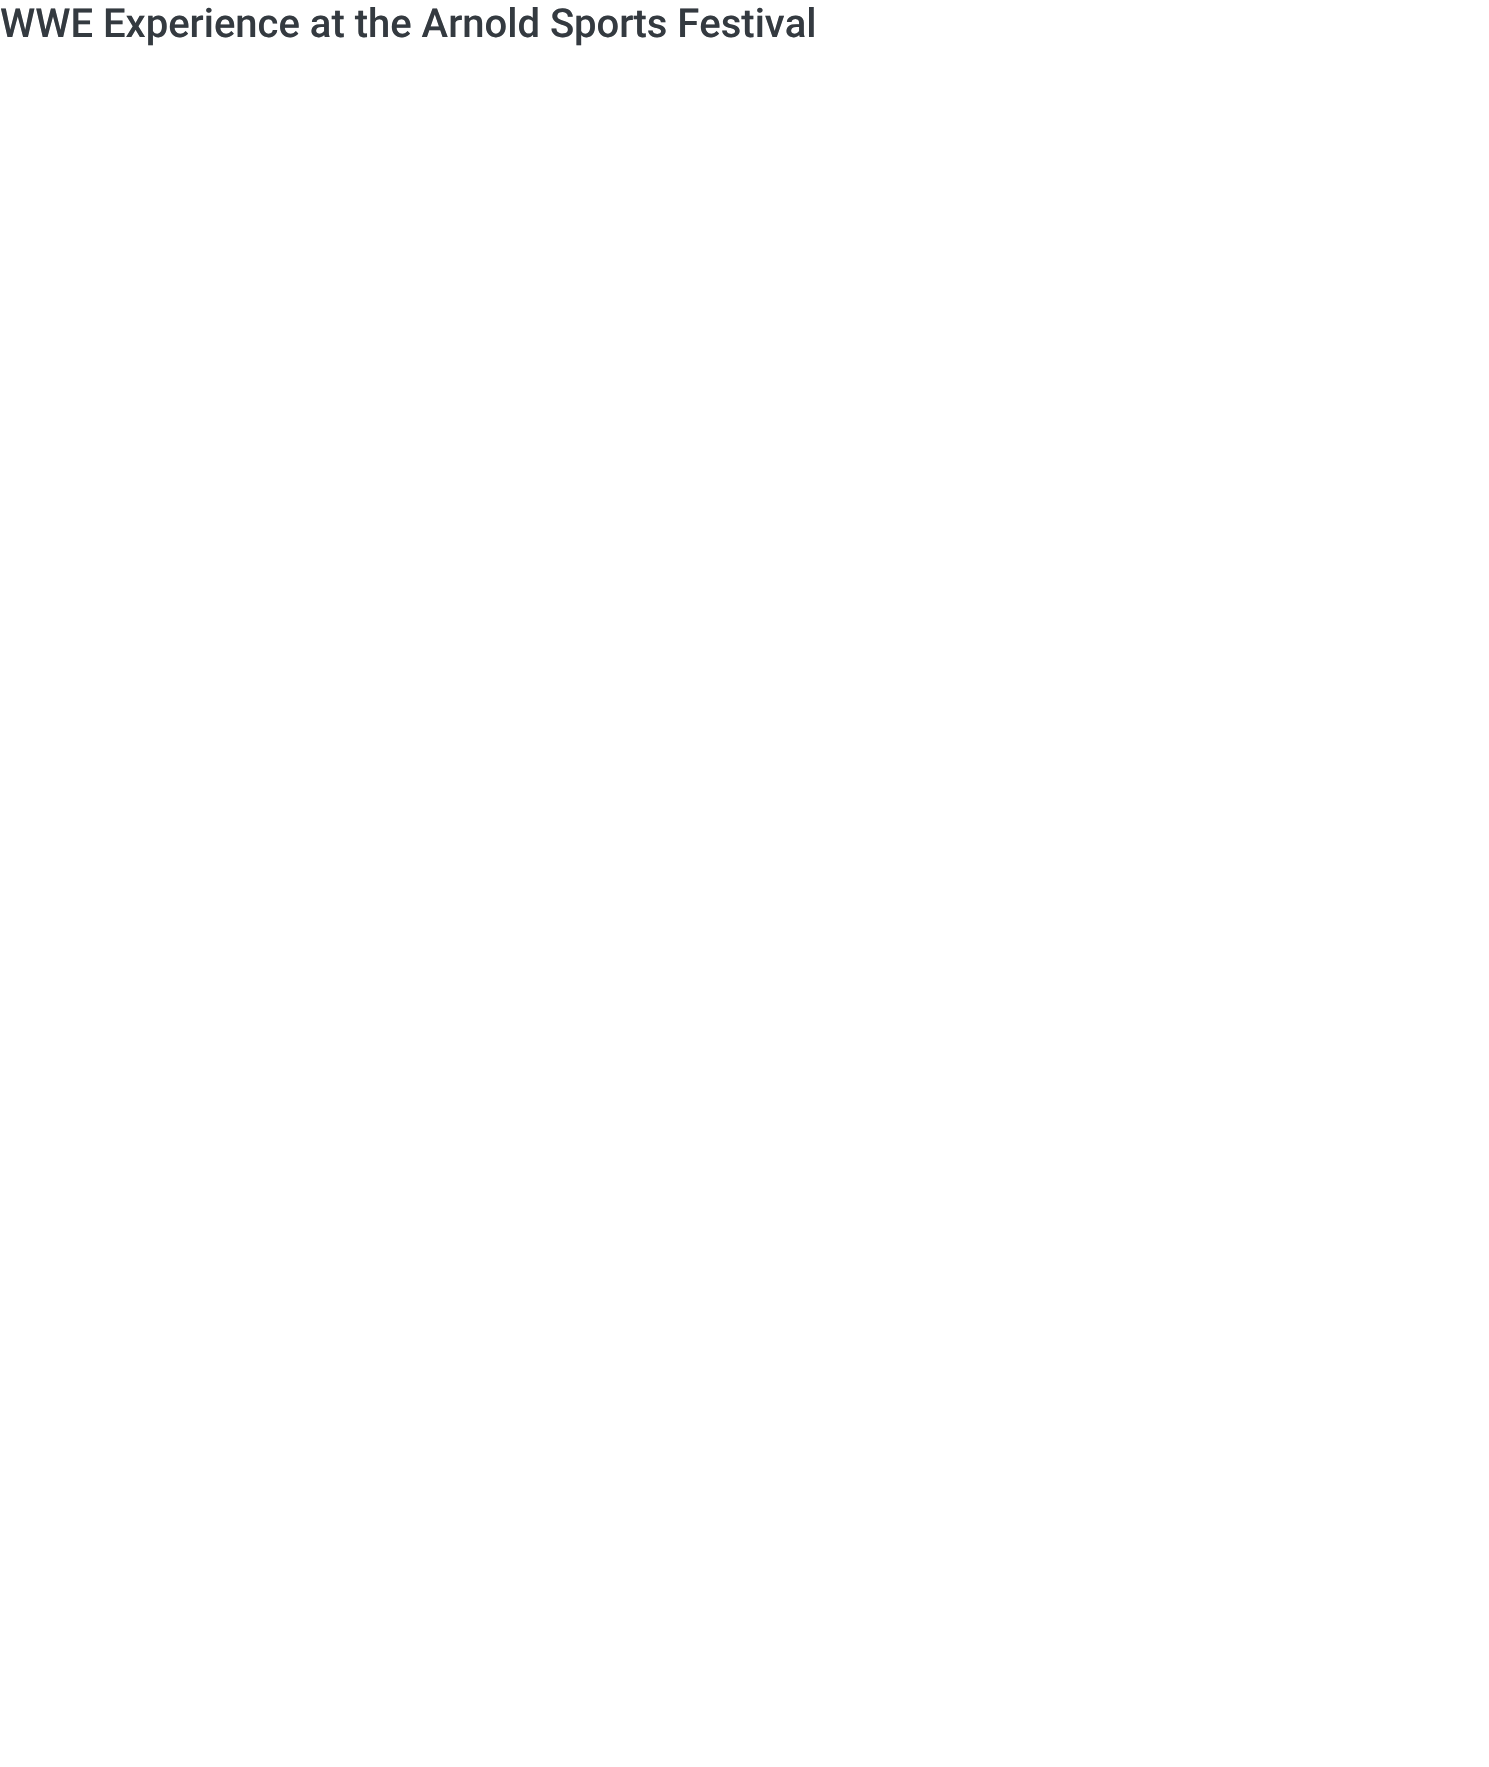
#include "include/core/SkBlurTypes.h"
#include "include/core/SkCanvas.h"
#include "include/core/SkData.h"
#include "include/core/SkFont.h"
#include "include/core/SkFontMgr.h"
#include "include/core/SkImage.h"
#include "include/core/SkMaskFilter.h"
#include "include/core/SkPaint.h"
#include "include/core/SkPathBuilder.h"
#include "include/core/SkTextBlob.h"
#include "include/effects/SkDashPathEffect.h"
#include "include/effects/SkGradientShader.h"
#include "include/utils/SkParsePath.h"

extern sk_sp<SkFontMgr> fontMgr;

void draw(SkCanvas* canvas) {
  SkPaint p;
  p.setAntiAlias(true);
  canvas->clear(SK_ColorWHITE);
  SkFont font1(fontMgr->matchFamilyStyle("Roboto", SkFontStyle(500, SkFontStyle::kNormal_Width, SkFontStyle::kUpright_Slant)), 40);
  font1.setSubpixel(true);
  p.setColor(SkColorSetRGB(52, 58, 64));
  canvas->drawString("WWE Experience at the Arnold Sports Festival", 0, 37, font1, p);
}
